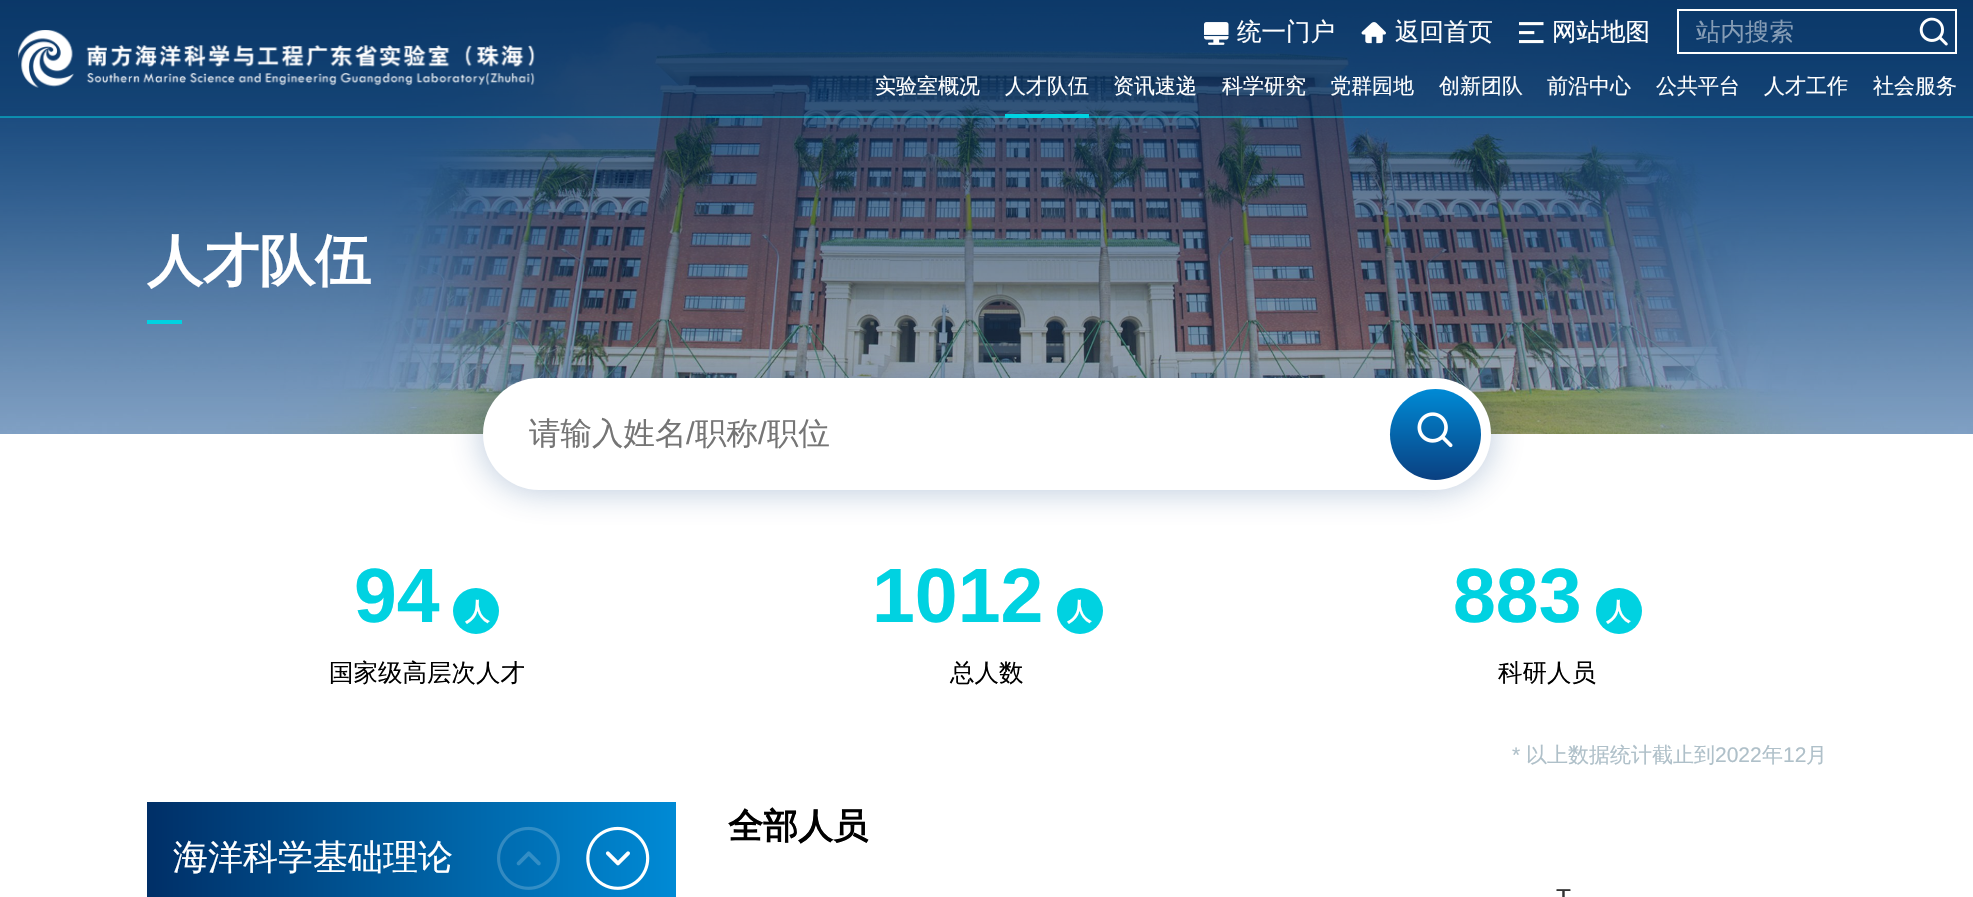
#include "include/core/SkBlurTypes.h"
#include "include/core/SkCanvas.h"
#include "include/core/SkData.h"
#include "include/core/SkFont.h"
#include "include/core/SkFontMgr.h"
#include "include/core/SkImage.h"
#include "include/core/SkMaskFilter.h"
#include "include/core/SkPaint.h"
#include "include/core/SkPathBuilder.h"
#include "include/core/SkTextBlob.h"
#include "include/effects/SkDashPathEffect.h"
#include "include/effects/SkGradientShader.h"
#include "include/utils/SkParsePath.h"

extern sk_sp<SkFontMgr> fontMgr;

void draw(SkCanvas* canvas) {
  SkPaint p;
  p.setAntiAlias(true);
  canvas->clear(SK_ColorWHITE);
  canvas->drawImageRect(SkImages::DeferredFromEncodedData(SkData::MakeFromFileName("images/6.png")), SkRect::MakeLTRB(0, 0, 1973, 434), SkSamplingOptions());
  p.setColor(SkColorSetARGB(77, 3, 49, 97));
  canvas->drawRect(SkRect::MakeLTRB(0, 0, 1973, 117), p);
  p.setColor(SkColorSetARGB(128, 0, 210, 225));
  canvas->drawRect(SkRect::MakeLTRB(0, 116, 1973, 118), p);
  canvas->drawImageRect(SkImages::DeferredFromEncodedData(SkData::MakeFromFileName("images/1.png")), SkRect::MakeLTRB(18, 30, 535, 88), SkSamplingOptions());
  canvas->drawImageRect(SkImages::DeferredFromEncodedData(SkData::MakeFromFileName("images/2.png")), SkRect::MakeLTRB(1204, 22, 1229, 45), SkSamplingOptions());
  canvas->drawImageRect(SkImages::DeferredFromEncodedData(SkData::MakeFromFileName("images/3.png")), SkRect::MakeLTRB(1361, 22, 1386, 44), SkSamplingOptions());
  canvas->drawImageRect(SkImages::DeferredFromEncodedData(SkData::MakeFromFileName("images/4.png")), SkRect::MakeLTRB(1519, 22, 1544, 44), SkSamplingOptions());
  p.setStyle(SkPaint::kStroke_Style);
  p.setStrokeWidth(2);
  p.setColor(SK_ColorWHITE);
  canvas->drawRect(SkRect::MakeLTRB(1678, 10, 1956, 53), p);
  canvas->drawImageRect(SkImages::DeferredFromEncodedData(SkData::MakeFromFileName("images/5.png")), SkRect::MakeLTRB(1919, 17, 1948, 46), SkSamplingOptions());
  p.setStyle(SkPaint::kFill_Style);
  p.setColor(SkColorSetRGB(0, 210, 225));
  canvas->drawRect(SkRect::MakeLTRB(1005, 114, 1089, 118), p);
  canvas->drawRect(SkRect::MakeLTRB(147, 320, 182, 324), p);
  p.setColor(SkColorSetARGB(77, 10, 64, 129));
  p.setMaskFilter(SkMaskFilter::MakeBlur(kNormal_SkBlurStyle, 17.5f));
  canvas->drawRoundRect(SkRect::MakeLTRB(483, 378, 1491, 490), 56, 56, p);
  p.setMaskFilter(nullptr);
  p.setColor(SK_ColorWHITE);
  canvas->drawRoundRect(SkRect::MakeLTRB(483, 378, 1491, 490), 56, 56, p);
  {
    const SkColor colors[] = {SkColorSetRGB(0, 138, 213), SkColorSetRGB(10, 64, 129)};
    const float stops[] = {0, 1};
    const SkPoint ends[] = {{1435, 389}, {1435, 480}};
    p.setShader(SkGradientShader::MakeLinear(ends, colors, stops, 2, SkTileMode::kClamp));
    p.setAlpha(255);
  }
  canvas->drawCircle(1435.5f, 434.5f, 45.5f, p);
  canvas->drawImageRect(SkImages::DeferredFromEncodedData(SkData::MakeFromFileName("images/7.png")), SkRect::MakeLTRB(1417, 412, 1453, 448), SkSamplingOptions());
  p.setShader(nullptr);
  p.setColor(SkColorSetRGB(0, 210, 225));
  canvas->drawCircle(476, 611, 23, p);
  canvas->drawCircle(1080, 611, 23, p);
  canvas->drawCircle(1619, 611, 23, p);
  {
    const SkColor colors[] = {SkColorSetRGB(0, 47, 103), SkColorSetRGB(0, 138, 213)};
    const float stops[] = {0, 1};
    const SkPoint ends[] = {{147, 861}, {676, 861}};
    p.setShader(SkGradientShader::MakeLinear(ends, colors, stops, 2, SkTileMode::kClamp));
    p.setAlpha(255);
  }
  canvas->drawRect(SkRect::MakeLTRB(147, 802, 676, 897), p);
  canvas->drawImageRect(SkImages::DeferredFromEncodedData(SkData::MakeFromFileName("images/8.png")), SkRect::MakeLTRB(497, 826, 560, 890), SkSamplingOptions());
  canvas->drawImageRect(SkImages::DeferredFromEncodedData(SkData::MakeFromFileName("images/9.png")), SkRect::MakeLTRB(586, 826, 650, 890), SkSamplingOptions());
  SkFont font1(fontMgr->matchFamilyStyle("WenQuanYi Zen Hei", SkFontStyle(500, SkFontStyle::kNormal_Width, SkFontStyle::kUpright_Slant)), 24.5f);
  font1.setSubpixel(true);
  p.setShader(nullptr);
  p.setColor(SK_ColorWHITE);
  canvas->drawString("统一门户", 1237, 40, font1, p);
  canvas->drawString("返回首页", 1395, 40, font1, p);
  canvas->drawString("网站地图", 1552, 40, font1, p);
  p.setColor(SkColorSetRGB(134, 157, 182));
  canvas->drawString("站内搜索", 1696, 40, font1, p);
  SkFont font2(fontMgr->matchFamilyStyle("WenQuanYi Zen Hei", SkFontStyle(500, SkFontStyle::kNormal_Width, SkFontStyle::kUpright_Slant)), 21);
  font2.setSubpixel(true);
  p.setColor(SK_ColorWHITE);
  canvas->drawString("实验室概况", 875, 93, font2, p);
  canvas->drawString("人才队伍", 1005, 93, font2, p);
  canvas->drawString("资讯速递", 1113, 93, font2, p);
  canvas->drawString("科学研究", 1222, 93, font2, p);
  canvas->drawString("党群园地", 1330, 93, font2, p);
  canvas->drawString("创新团队", 1439, 93, font2, p);
  canvas->drawString("前沿中心", 1547, 93, font2, p);
  canvas->drawString("公共平台", 1656, 93, font2, p);
  canvas->drawString("人才工作", 1764, 93, font2, p);
  canvas->drawString("社会服务", 1873, 93, font2, p);
  SkFont font3(fontMgr->matchFamilyStyle("WenQuanYi Zen Hei", SkFontStyle::Bold()), 56);
  font3.setSubpixel(true);
  canvas->drawString("人才队伍", 147, 280, font3, p);
  SkFont font4(fontMgr->matchFamilyStyle("WenQuanYi Zen Hei", SkFontStyle(500, SkFontStyle::kNormal_Width, SkFontStyle::kUpright_Slant)), 31.5f);
  font4.setSubpixel(true);
  p.setColor(SkColorSetRGB(117, 117, 117));
  canvas->drawString("请输入姓名", 529, 444, font4, p);
  SkFont font5(fontMgr->matchFamilyStyle("Liberation Sans", SkFontStyle::Normal()), 31.5f);
  font5.setSubpixel(true);
  canvas->drawString("/", 686, 444, font5, p);
  canvas->drawString("职称", 695, 444, font4, p);
  canvas->drawString("/", 758, 444, font5, p);
  canvas->drawString("职位", 767, 444, font4, p);
  SkFont font6(fontMgr->matchFamilyStyle("Liberation Sans", SkFontStyle::Bold()), 77);
  font6.setSubpixel(true);
  p.setColor(SkColorSetRGB(0, 210, 225));
  canvas->drawString("94", 354, 622, font6, p);
  SkFont font7(fontMgr->matchFamilyStyle("WenQuanYi Zen Hei", SkFontStyle::Bold()), 24.5f);
  font7.setSubpixel(true);
  p.setColor(SK_ColorWHITE);
  canvas->drawString("人", 465, 620, font7, p);
  p.setColor(SK_ColorBLACK);
  canvas->drawString("国家级高层次人才", 329, 681, font1, p);
  p.setColor(SkColorSetRGB(0, 210, 225));
  canvas->drawString("1012", 872, 622, font6, p);
  p.setColor(SK_ColorWHITE);
  canvas->drawString("人", 1067, 620, font7, p);
  p.setColor(SK_ColorBLACK);
  canvas->drawString("总人数", 950, 681, font1, p);
  p.setColor(SkColorSetRGB(0, 210, 225));
  canvas->drawString("883", 1453, 622, font6, p);
  p.setColor(SK_ColorWHITE);
  canvas->drawString("人", 1606, 620, font7, p);
  p.setColor(SK_ColorBLACK);
  canvas->drawString("科研人员", 1498, 681, font1, p);
  SkFont font8(fontMgr->matchFamilyStyle("Liberation Sans", SkFontStyle::Normal()), 21);
  font8.setSubpixel(true);
  p.setColor(SkColorSetRGB(175, 192, 201));
  canvas->drawString("*", 1512, 762, font8, p);
  canvas->drawString("以上数据统计截止到", 1526, 762, font2, p);
  canvas->drawString("2022", 1715, 762, font8, p);
  canvas->drawString("年", 1762, 762, font2, p);
  canvas->drawString("12", 1783, 762, font8, p);
  canvas->drawString("月", 1806, 762, font2, p);
  SkFont font9(fontMgr->matchFamilyStyle("WenQuanYi Zen Hei", SkFontStyle(500, SkFontStyle::kNormal_Width, SkFontStyle::kUpright_Slant)), 35);
  font9.setSubpixel(true);
  p.setColor(SK_ColorWHITE);
  canvas->drawString("海洋科学基础理论", 173, 869, font9, p);
  SkFont font10(fontMgr->matchFamilyStyle("WenQuanYi Zen Hei", SkFontStyle::Bold()), 35);
  font10.setSubpixel(true);
  p.setColor(SK_ColorBLACK);
  canvas->drawString("全部人员", 728, 838, font10, p);
  SkFont font11(fontMgr->matchFamilyStyle("Liberation Sans", SkFontStyle::Normal()), 24.5f);
  font11.setSubpixel(true);
  p.setColor(SkColorSetRGB(51, 51, 51));
  canvas->drawString("T", 1556, 906, font11, p);
}
